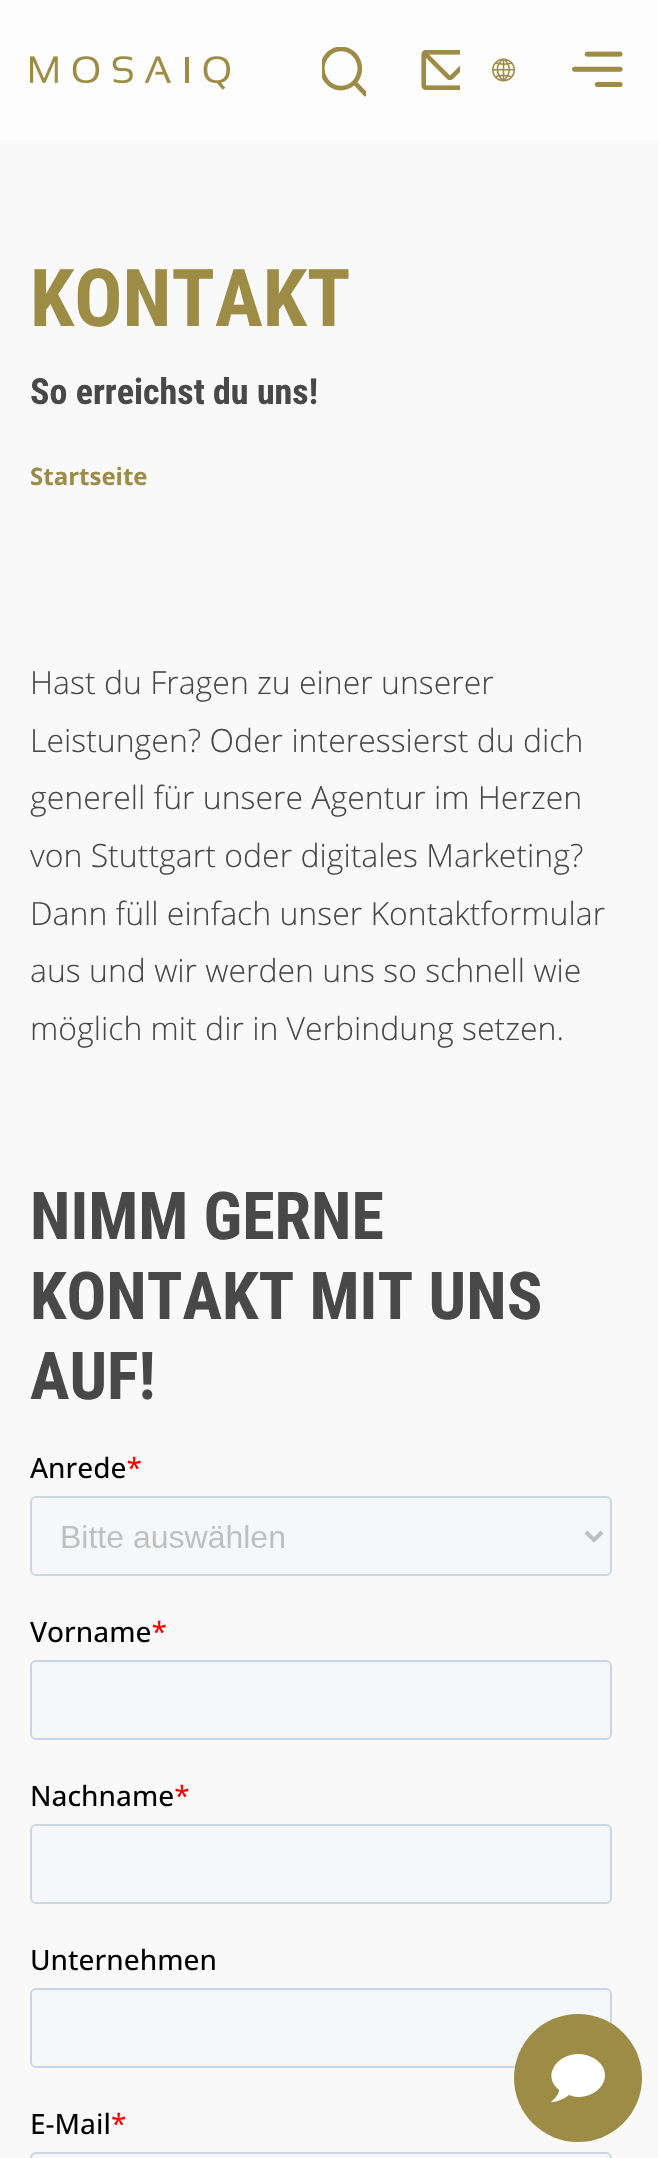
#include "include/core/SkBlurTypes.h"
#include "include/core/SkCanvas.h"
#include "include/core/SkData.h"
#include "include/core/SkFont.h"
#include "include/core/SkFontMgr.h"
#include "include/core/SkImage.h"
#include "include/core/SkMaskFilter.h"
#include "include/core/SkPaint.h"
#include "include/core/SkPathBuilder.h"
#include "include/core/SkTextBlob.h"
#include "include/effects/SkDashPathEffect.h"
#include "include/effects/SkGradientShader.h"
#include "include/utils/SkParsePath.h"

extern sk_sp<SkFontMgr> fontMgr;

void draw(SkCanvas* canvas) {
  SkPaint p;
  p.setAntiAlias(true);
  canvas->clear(SkColorSetRGB(249, 249, 249));
  p.setColor(SkColorSetRGB(253, 253, 253));
  canvas->drawRect(SkRect::MakeLTRB(0, 0, 658, 140), p);
  canvas->drawImageRect(SkImages::DeferredFromEncodedData(SkData::MakeFromFileName("images/1.png")), SkRect::MakeLTRB(30, 56, 230, 90), SkSamplingOptions());
  canvas->drawImageRect(SkImages::DeferredFromEncodedData(SkData::MakeFromFileName("images/2.png")), SkRect::MakeLTRB(322, 47, 366, 97), SkSamplingOptions());
  canvas->drawImageRect(SkImages::DeferredFromEncodedData(SkData::MakeFromFileName("images/3.png")), SkRect::MakeLTRB(421, 50, 460, 90), SkSamplingOptions());
  canvas->drawImageRect(SkImages::DeferredFromEncodedData(SkData::MakeFromFileName("images/4.png")), SkRect::MakeLTRB(492, 58, 515, 82), SkSamplingOptions());
  canvas->drawImageRect(SkImages::DeferredFromEncodedData(SkData::MakeFromFileName("images/5.png")), SkRect::MakeLTRB(572, 51, 623, 87), SkSamplingOptions());
  canvas->drawImageRect(SkImages::DeferredFromEncodedData(SkData::MakeFromFileName("images/6.png")), SkRect::MakeLTRB(30, 1456, 612, 2158), SkSamplingOptions());
  p.setColor(SkColorSetRGB(157, 140, 69));
  canvas->drawCircle(578, 2078, 64, p);
  p.setColor(SK_ColorWHITE);
  canvas->drawPath(SkPathBuilder().moveTo(578, 2054).cubicTo(593, 2054, 605, 2064, 605, 2075).cubicTo(605, 2087, 593, 2097, 578, 2097).cubicTo(575, 2097, 572, 2096, 569, 2095).cubicTo(561, 2102, 551, 2102, 551, 2102).cubicTo(558, 2096, 559, 2092, 559, 2090).cubicTo(541, 2075, 558, 2054, 578, 2054).detach(), p);
  SkFont font1(fontMgr->matchFamilyStyle("Roboto Condensed", SkFontStyle::Bold()), 80);
  font1.setSubpixel(true);
  p.setColor(SkColorSetRGB(157, 140, 69));
  canvas->drawString("KONTAKT", 30, 326, font1, p);
  SkFont font2(fontMgr->matchFamilyStyle("Roboto Condensed", SkFontStyle::Bold()), 36);
  font2.setSubpixel(true);
  p.setColor(SkColorSetRGB(72, 72, 72));
  canvas->drawString("So erreichst du uns!", 30, 404, font2, p);
  SkFont font3(fontMgr->matchFamilyStyle("Open Sans", SkFontStyle::Bold()), 24);
  font3.setSubpixel(true);
  p.setColor(SkColorSetRGB(157, 140, 69));
  canvas->drawString("Startseite", 30, 485, font3, p);
  SkFont font4(fontMgr->matchFamilyStyle("Open Sans", SkFontStyle(300, SkFontStyle::kNormal_Width, SkFontStyle::kUpright_Slant)), 32);
  font4.setSubpixel(true);
  p.setColor(SkColorSetRGB(72, 72, 72));
  canvas->drawString("Hast du Fragen zu einer unserer", 30, 694, font4, p);
  canvas->drawString("Leistungen? Oder interessierst du dich", 30, 752, font4, p);
  canvas->drawString("generell für unsere Agentur im Herzen", 30, 809, font4, p);
  canvas->drawString("von Stuttgart oder digitales Marketing?", 30, 867, font4, p);
  canvas->drawString("Dann füll einfach unser Kontaktformular", 30, 925, font4, p);
  canvas->drawString("aus und wir werden uns so schnell wie", 30, 982, font4, p);
  canvas->drawString("möglich mit dir in Verbindung setzen.", 30, 1040, font4, p);
  SkFont font5(fontMgr->matchFamilyStyle("Roboto Condensed", SkFontStyle::Bold()), 66);
  font5.setSubpixel(true);
  canvas->drawString("NIMM GERNE", 30, 1239, font5, p);
  canvas->drawString("KONTAKT MIT UNS", 30, 1319, font5, p);
  canvas->drawString("AUF!", 30, 1399, font5, p);
}
